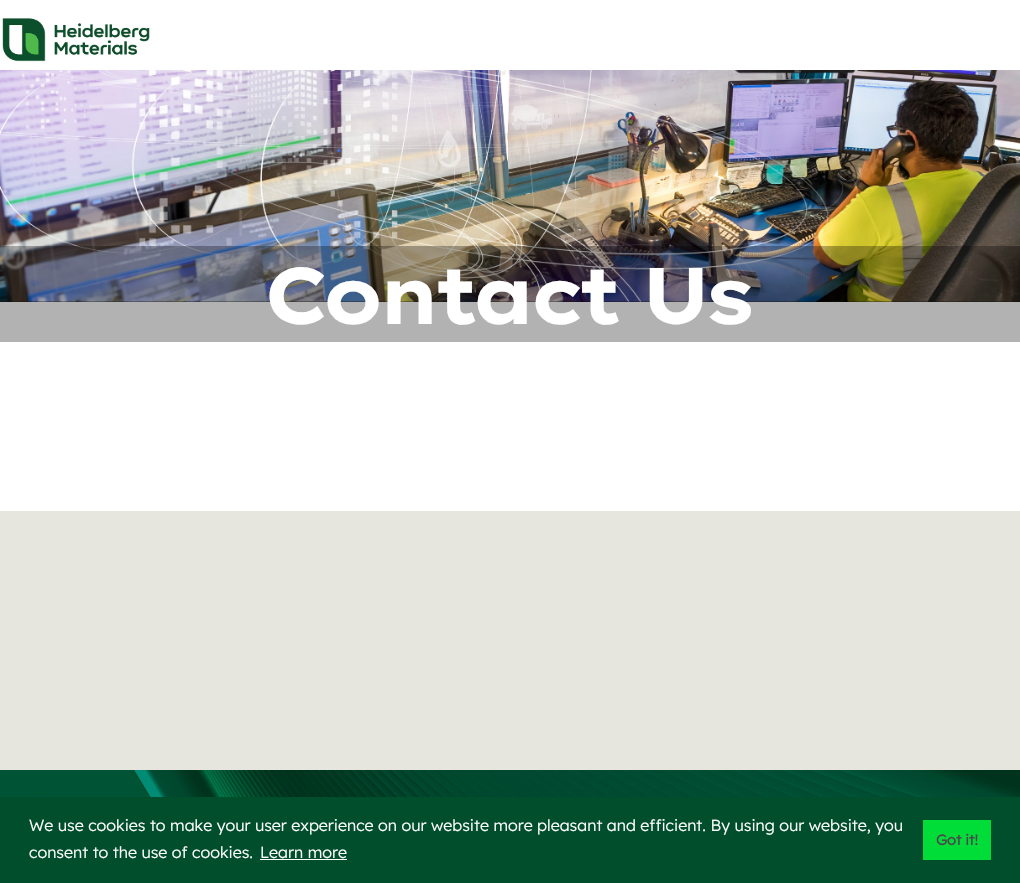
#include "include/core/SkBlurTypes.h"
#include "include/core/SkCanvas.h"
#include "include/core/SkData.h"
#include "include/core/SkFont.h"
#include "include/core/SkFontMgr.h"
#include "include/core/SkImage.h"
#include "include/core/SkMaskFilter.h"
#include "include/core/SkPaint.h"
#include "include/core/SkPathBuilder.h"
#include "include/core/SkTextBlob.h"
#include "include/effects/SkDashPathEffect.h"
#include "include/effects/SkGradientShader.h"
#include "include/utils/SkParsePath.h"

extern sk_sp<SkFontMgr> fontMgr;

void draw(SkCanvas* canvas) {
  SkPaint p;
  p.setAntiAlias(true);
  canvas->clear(SK_ColorWHITE);
  canvas->drawImageRect(SkImages::DeferredFromEncodedData(SkData::MakeFromFileName("images/1.png")), SkRect::MakeLTRB(2, 18, 150, 62), SkSamplingOptions());
  canvas->drawImageRect(SkImages::DeferredFromEncodedData(SkData::MakeFromFileName("images/2.png")), SkRect::MakeLTRB(0, 70, 1020, 302), SkSamplingOptions());
  p.setColor(SkColorSetARGB(77, 0, 0, 0));
  canvas->drawRect(SkRect::MakeLTRB(0, 246, 1020, 342), p);
  p.setColor(SkColorSetRGB(230, 230, 223));
  canvas->drawRect(SkRect::MakeLTRB(0, 511, 1020, 770), p);
  p.setColor(SkColorSetRGB(0, 78, 43));
  canvas->drawRect(SkRect::MakeLTRB(0, 797, 1020, 883), p);
  p.setColor(SK_ColorWHITE);
  canvas->drawRect(SkRect::MakeLTRB(260, 859, 347, 860), p);
  p.setColor(SkColorSetRGB(0, 221, 57));
  canvas->drawRect(SkRect::MakeLTRB(923, 820, 991, 860), p);
  canvas->drawImageRect(SkImages::DeferredFromEncodedData(SkData::MakeFromFileName("images/3.png")), SkRect::MakeLTRB(0, 770, 1020, 797), SkSamplingOptions());
  SkFont font1(fontMgr->matchFamilyStyle("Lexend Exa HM", SkFontStyle::Bold()), 80);
  font1.setSubpixel(true);
  p.setColor(SK_ColorWHITE);
  canvas->drawString("Contact Us", 267, 324, font1, p);
  SkFont font2(fontMgr->matchFamilyStyle("Lexend", SkFontStyle(300, SkFontStyle::kNormal_Width, SkFontStyle::kUpright_Slant)), 16);
  font2.setSubpixel(true);
  canvas->drawString("We use cookies to make your user experience on our website more pleasant and efficient. By using our website, you", 29, 831, font2, p);
  canvas->drawString("consent to the use of cookies.", 29, 858, font2, p);
  canvas->drawString("Learn more", 260, 858, font2, p);
  SkFont font3(fontMgr->matchFamilyStyle("Lexend", SkFontStyle::Bold()), 14.5f);
  font3.setSubpixel(true);
  p.setColor(SkColorSetRGB(74, 74, 74));
  canvas->drawString("Got it!", 936, 845, font3, p);
}
